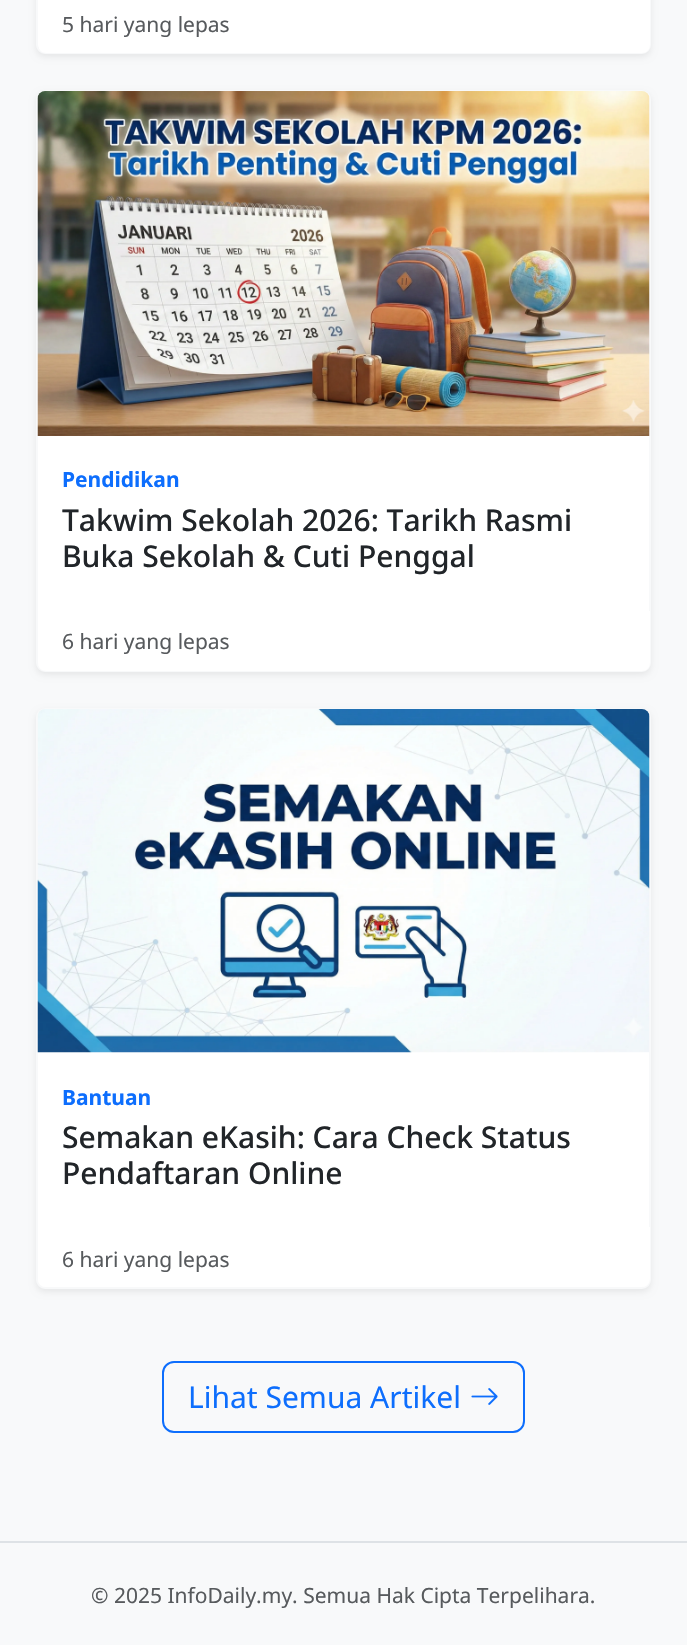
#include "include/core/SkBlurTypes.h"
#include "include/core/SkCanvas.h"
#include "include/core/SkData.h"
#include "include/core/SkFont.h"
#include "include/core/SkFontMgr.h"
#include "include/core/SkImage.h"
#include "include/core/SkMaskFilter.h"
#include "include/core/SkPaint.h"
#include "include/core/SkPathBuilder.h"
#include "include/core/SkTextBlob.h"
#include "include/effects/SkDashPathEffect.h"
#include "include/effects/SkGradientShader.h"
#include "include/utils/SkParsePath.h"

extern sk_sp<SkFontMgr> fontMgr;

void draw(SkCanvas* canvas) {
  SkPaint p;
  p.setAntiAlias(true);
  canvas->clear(SkColorSetRGB(248, 249, 250));
  p.setColor(SkColorSetARGB(18, 0, 0, 0));
  p.setMaskFilter(SkMaskFilter::MakeBlur(kNormal_SkBlurStyle, 3));
  canvas->drawRoundRect(SkRect::MakeLTRB(36, -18, 651, 57), 9, 9, p);
  p.setMaskFilter(nullptr);
  p.setStyle(SkPaint::kStroke_Style);
  p.setStrokeWidth(2);
  p.setColor(SkColorSetRGB(248, 249, 250));
  canvas->drawRoundRect(SkRect::MakeLTRB(37, -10, 650, 53), 8, 8, p);
  p.setStyle(SkPaint::kFill_Style);
  p.setColor(SK_ColorWHITE);
  canvas->drawPath(SkPathBuilder().moveTo(38, -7).lineTo(650, -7).lineTo(650, 45).cubicTo(650, 49.5f, 646.5f, 53, 642, 53).lineTo(46, 53).cubicTo(41.5f, 53, 38, 49.5f, 38, 45).close().detach(), p);
  p.setColor(SkColorSetARGB(18, 0, 0, 0));
  p.setMaskFilter(SkMaskFilter::MakeBlur(kNormal_SkBlurStyle, 3));
  canvas->drawRoundRect(SkRect::MakeLTRB(36, 93, 651, 675), 9, 9, p);
  p.setMaskFilter(nullptr);
  p.setColor(SK_ColorWHITE);
  canvas->drawRoundRect(SkRect::MakeLTRB(37, 91, 650, 671), 8, 8, p);
  p.setStyle(SkPaint::kStroke_Style);
  p.setColor(SkColorSetRGB(248, 249, 250));
  canvas->drawRoundRect(SkRect::MakeLTRB(37, 91, 650, 671), 8, 8, p);
  canvas->drawImageRect(SkImages::DeferredFromEncodedData(SkData::MakeFromFileName("images/1.png")), SkRect::MakeLTRB(37, 91, 650, 436), SkSamplingOptions());
  p.setStyle(SkPaint::kFill_Style);
  p.setColor(SK_ColorWHITE);
  canvas->drawPath(SkPathBuilder().moveTo(38, 611).lineTo(650, 611).lineTo(650, 663).cubicTo(650, 667.5f, 646.5f, 671, 642, 671).lineTo(46, 671).cubicTo(41.5f, 671, 38, 667.5f, 38, 663).close().detach(), p);
  p.setColor(SkColorSetARGB(18, 0, 0, 0));
  p.setMaskFilter(SkMaskFilter::MakeBlur(kNormal_SkBlurStyle, 3));
  canvas->drawRoundRect(SkRect::MakeLTRB(36, 711, 651, 1292), 9, 9, p);
  p.setMaskFilter(nullptr);
  p.setColor(SK_ColorWHITE);
  canvas->drawRoundRect(SkRect::MakeLTRB(37, 709, 650, 1288), 8, 8, p);
  p.setStyle(SkPaint::kStroke_Style);
  p.setColor(SkColorSetRGB(248, 249, 250));
  canvas->drawRoundRect(SkRect::MakeLTRB(37, 709, 650, 1288), 8, 8, p);
  canvas->drawImageRect(SkImages::DeferredFromEncodedData(SkData::MakeFromFileName("images/2.png")), SkRect::MakeLTRB(37, 709, 650, 1053), SkSamplingOptions());
  p.setStyle(SkPaint::kFill_Style);
  p.setColor(SK_ColorWHITE);
  canvas->drawPath(SkPathBuilder().moveTo(38, 1227).lineTo(650, 1227).lineTo(650, 1279).cubicTo(650, 1283.5f, 646.5f, 1287, 642, 1287).lineTo(46, 1287).cubicTo(41.5f, 1287, 38, 1283.5f, 38, 1279).close().detach(), p);
  p.setStyle(SkPaint::kStroke_Style);
  p.setColor(SkColorSetRGB(13, 110, 253));
  canvas->drawRoundRect(SkRect::MakeLTRB(163, 1362, 524, 1432), 11, 11, p);
  canvas->drawImageRect(SkImages::DeferredFromEncodedData(SkData::MakeFromFileName("images/3.png")), SkRect::MakeLTRB(471, 1388, 498, 1405), SkSamplingOptions());
  p.setStyle(SkPaint::kFill_Style);
  p.setColor(SkColorSetRGB(222, 226, 230));
  canvas->drawRect(SkRect::MakeLTRB(0, 1541, 687, 1543), p);
  SkFont font1(fontMgr->matchFamilyStyle("Noto Sans", SkFontStyle::Normal()), 21);
  font1.setSubpixel(true);
  p.setColor(SkColorSetRGB(87, 90, 93));
  canvas->drawString("5 hari yang lepas", 62, 32, font1, p);
  SkFont font2(fontMgr->matchFamilyStyle("Noto Sans", SkFontStyle::Bold()), 21);
  font2.setSubpixel(true);
  p.setColor(SkColorSetRGB(13, 110, 253));
  canvas->drawString("Pendidikan", 62, 487, font2, p);
  SkFont font3(fontMgr->matchFamilyStyle("Noto Sans", SkFontStyle(500, SkFontStyle::kNormal_Width, SkFontStyle::kUpright_Slant)), 30);
  font3.setSubpixel(true);
  p.setColor(SkColorSetRGB(33, 37, 41));
  canvas->drawString("Takwim Sekolah 2026: Tarikh Rasmi", 62, 531, font3, p);
  canvas->drawString("Buka Sekolah & Cuti Penggal", 62, 567, font3, p);
  p.setColor(SkColorSetRGB(87, 90, 93));
  canvas->drawString("6 hari yang lepas", 62, 649, font1, p);
  p.setColor(SkColorSetRGB(13, 110, 253));
  canvas->drawString("Bantuan", 62, 1105, font2, p);
  p.setColor(SkColorSetRGB(33, 37, 41));
  canvas->drawString("Semakan eKasih: Cara Check Status", 62, 1148, font3, p);
  canvas->drawString("Pendaftaran Online", 62, 1184, font3, p);
  p.setColor(SkColorSetRGB(87, 90, 93));
  canvas->drawString("6 hari yang lepas", 62, 1267, font1, p);
  SkFont font4(fontMgr->matchFamilyStyle("Noto Sans", SkFontStyle::Normal()), 30);
  font4.setSubpixel(true);
  p.setColor(SkColorSetRGB(13, 110, 253));
  canvas->drawString("Lihat Semua Artikel", 188, 1408, font4, p);
  p.setColor(SkColorSetRGB(87, 90, 93));
  canvas->drawString("© 2025 InfoDaily.my. Semua Hak Cipta Terpelihara.", 91, 1603, font1, p);
}
